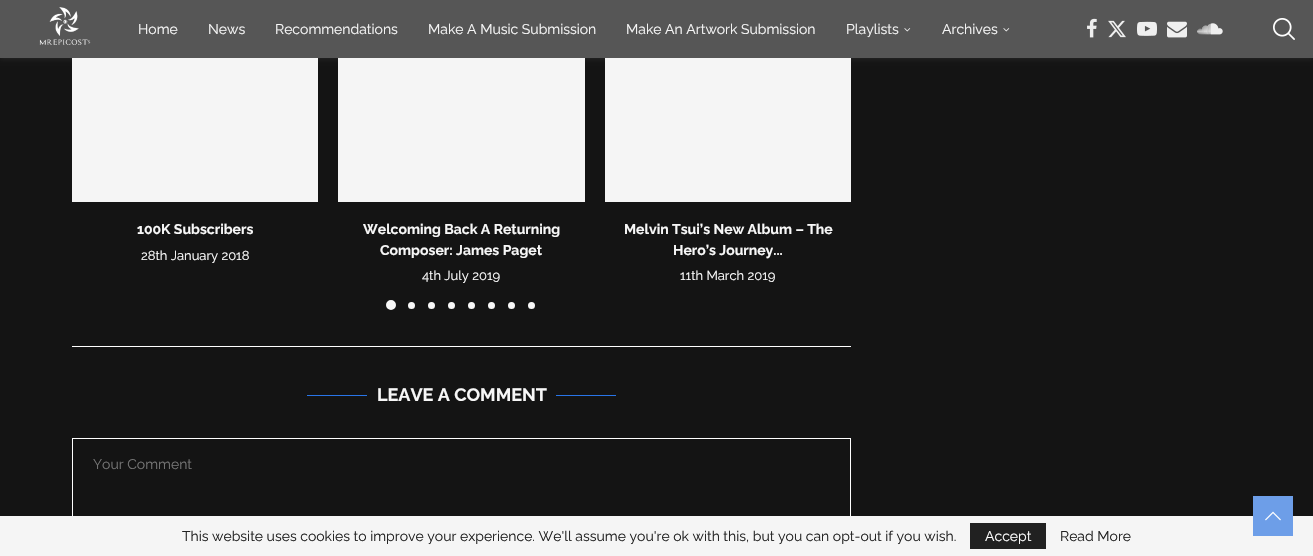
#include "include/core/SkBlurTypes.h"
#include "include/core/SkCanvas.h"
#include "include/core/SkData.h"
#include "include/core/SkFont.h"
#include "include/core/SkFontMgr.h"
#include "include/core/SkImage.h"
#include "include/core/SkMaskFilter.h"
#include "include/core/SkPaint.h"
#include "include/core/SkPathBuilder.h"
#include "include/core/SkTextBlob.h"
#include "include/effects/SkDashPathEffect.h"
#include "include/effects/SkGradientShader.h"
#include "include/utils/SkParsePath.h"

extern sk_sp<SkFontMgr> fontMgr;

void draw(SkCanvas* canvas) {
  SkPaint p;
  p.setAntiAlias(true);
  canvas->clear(SkColorSetRGB(20, 20, 20));
  p.setColor(SkColorSetRGB(245, 245, 245));
  canvas->drawRect(SkRect::MakeLTRB(72, 58, 318, 202), p);
  canvas->drawRect(SkRect::MakeLTRB(338, 58, 585, 202), p);
  canvas->drawRect(SkRect::MakeLTRB(605, 58, 851, 202), p);
  p.setColor(SkColorSetARGB(20, 255, 255, 255));
  p.setMaskFilter(SkMaskFilter::MakeBlur(kNormal_SkBlurStyle, 2.5f));
  canvas->drawRect(SkRect::MakeLTRB(0, 1, 1313, 59), p);
  p.setMaskFilter(nullptr);
  p.setColor(SkColorSetRGB(86, 86, 86));
  canvas->drawRect(SkRect::MakeLTRB(0, 0, 1313, 58), p);
  canvas->drawImageRect(SkImages::DeferredFromEncodedData(SkData::MakeFromFileName("images/1.png")), SkRect::MakeLTRB(39, 7, 91, 45), SkSamplingOptions());
  canvas->drawImageRect(SkImages::DeferredFromEncodedData(SkData::MakeFromFileName("images/2.png")), SkRect::MakeLTRB(904, 28, 911, 32), SkSamplingOptions());
  canvas->drawImageRect(SkImages::DeferredFromEncodedData(SkData::MakeFromFileName("images/3.png")), SkRect::MakeLTRB(1003, 28, 1010, 32), SkSamplingOptions());
  canvas->drawImageRect(SkImages::DeferredFromEncodedData(SkData::MakeFromFileName("images/4.png")), SkRect::MakeLTRB(1087, 18, 1097, 38), SkSamplingOptions());
  canvas->drawImageRect(SkImages::DeferredFromEncodedData(SkData::MakeFromFileName("images/5.png")), SkRect::MakeLTRB(1108, 20, 1126, 38), SkSamplingOptions());
  canvas->drawImageRect(SkImages::DeferredFromEncodedData(SkData::MakeFromFileName("images/6.png")), SkRect::MakeLTRB(1137, 21, 1157, 36), SkSamplingOptions());
  canvas->drawImageRect(SkImages::DeferredFromEncodedData(SkData::MakeFromFileName("images/7.png")), SkRect::MakeLTRB(1167, 21, 1187, 38), SkSamplingOptions());
  canvas->drawImageRect(SkImages::DeferredFromEncodedData(SkData::MakeFromFileName("images/8.png")), SkRect::MakeLTRB(1197, 23, 1223, 35), SkSamplingOptions());
  canvas->drawImageRect(SkImages::DeferredFromEncodedData(SkData::MakeFromFileName("images/9.png")), SkRect::MakeLTRB(1273, 18, 1295, 40), SkSamplingOptions());
  p.setColor(SkColorSetRGB(247, 247, 247));
  canvas->drawCircle(391, 305, 4, p);
  p.setStyle(SkPaint::kStroke_Style);
  p.setStrokeWidth(2);
  canvas->drawCircle(391, 305, 4, p);
  p.setStyle(SkPaint::kFill_Style);
  canvas->drawCircle(411.5f, 305.5f, 2.5f, p);
  p.setStyle(SkPaint::kStroke_Style);
  canvas->drawCircle(411.5f, 305.5f, 2.5f, p);
  p.setStyle(SkPaint::kFill_Style);
  canvas->drawCircle(431.5f, 305.5f, 2.5f, p);
  p.setStyle(SkPaint::kStroke_Style);
  canvas->drawCircle(431.5f, 305.5f, 2.5f, p);
  p.setStyle(SkPaint::kFill_Style);
  canvas->drawCircle(451.5f, 305.5f, 2.5f, p);
  p.setStyle(SkPaint::kStroke_Style);
  canvas->drawCircle(451.5f, 305.5f, 2.5f, p);
  p.setStyle(SkPaint::kFill_Style);
  canvas->drawCircle(471.5f, 305.5f, 2.5f, p);
  p.setStyle(SkPaint::kStroke_Style);
  canvas->drawCircle(471.5f, 305.5f, 2.5f, p);
  p.setStyle(SkPaint::kFill_Style);
  canvas->drawCircle(491.5f, 305.5f, 2.5f, p);
  p.setStyle(SkPaint::kStroke_Style);
  canvas->drawCircle(491.5f, 305.5f, 2.5f, p);
  p.setStyle(SkPaint::kFill_Style);
  canvas->drawCircle(511.5f, 305.5f, 2.5f, p);
  p.setStyle(SkPaint::kStroke_Style);
  canvas->drawCircle(511.5f, 305.5f, 2.5f, p);
  p.setStyle(SkPaint::kFill_Style);
  canvas->drawCircle(531.5f, 305.5f, 2.5f, p);
  p.setStyle(SkPaint::kStroke_Style);
  canvas->drawCircle(531.5f, 305.5f, 2.5f, p);
  p.setStyle(SkPaint::kFill_Style);
  p.setColor(SK_ColorWHITE);
  canvas->drawRect(SkRect::MakeLTRB(72, 346, 851, 347), p);
  p.setColor(SkColorSetRGB(41, 117, 232));
  canvas->drawRect(SkRect::MakeLTRB(307, 395, 367, 396), p);
  canvas->drawRect(SkRect::MakeLTRB(556, 395, 616, 396), p);
  p.setStyle(SkPaint::kStroke_Style);
  p.setStrokeWidth(1);
  p.setColor(SK_ColorWHITE);
  canvas->drawRect(SkRect::MakeLTRB(72.5f, 438.5f, 850.5f, 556.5f), p);
  p.setStyle(SkPaint::kFill_Style);
  p.setColor(SkColorSetRGB(245, 245, 245));
  canvas->drawRect(SkRect::MakeLTRB(0, 516, 1313, 556), p);
  p.setColor(SkColorSetRGB(109, 158, 232));
  canvas->drawRect(SkRect::MakeLTRB(1253, 496, 1293, 536), p);
  canvas->drawImageRect(SkImages::DeferredFromEncodedData(SkData::MakeFromFileName("images/10.png")), SkRect::MakeLTRB(1265, 511, 1281, 521), SkSamplingOptions());
  p.setColor(SkColorSetRGB(33, 33, 33));
  canvas->drawRect(SkRect::MakeLTRB(970, 523, 1046, 549), p);
  SkFont font1(fontMgr->matchFamilyStyle("Raleway", SkFontStyle(100, SkFontStyle::kNormal_Width, SkFontStyle::kUpright_Slant)), 14);
  font1.setSubpixel(true);
  p.setColor(SkColorSetRGB(247, 247, 247));
  canvas->drawString("Home", 138, 34, font1, p);
  canvas->drawString("News", 208, 34, font1, p);
  canvas->drawString("Recommendations", 275, 34, font1, p);
  canvas->drawString("Make A Music Submission", 428, 34, font1, p);
  canvas->drawString("Make An Artwork Submission", 626, 34, font1, p);
  canvas->drawString("Playlists", 846, 34, font1, p);
  canvas->drawString("Archives", 942, 34, font1, p);
  SkFont font2(fontMgr->matchFamilyStyle("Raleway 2", SkFontStyle(100, SkFontStyle::kNormal_Width, SkFontStyle::kUpright_Slant)), 14);
  font2.setSubpixel(true);
  canvas->drawString("100K Subscribers", 137, 234, font2, p);
  SkFont font3(fontMgr->matchFamilyStyle("Raleway", SkFontStyle(100, SkFontStyle::kNormal_Width, SkFontStyle::kUpright_Slant)), 13);
  font3.setSubpixel(true);
  p.setColor(SK_ColorWHITE);
  canvas->drawString("28th January 2018", 141, 260, font3, p);
  p.setColor(SkColorSetRGB(247, 247, 247));
  canvas->drawString("Welcoming Back A Returning", 363, 234, font2, p);
  canvas->drawString("Composer: James Paget", 380, 255, font2, p);
  p.setColor(SK_ColorWHITE);
  canvas->drawString("4th July 2019", 422, 280, font3, p);
  p.setColor(SkColorSetRGB(247, 247, 247));
  canvas->drawString("Melvin Tsui’s New Album – The", 624, 234, font2, p);
  canvas->drawString("Hero’s Journey...", 673, 255, font2, p);
  p.setColor(SK_ColorWHITE);
  canvas->drawString("11th March 2019", 680, 280, font3, p);
  SkFont font4(fontMgr->matchFamilyStyle("Raleway 2", SkFontStyle(100, SkFontStyle::kNormal_Width, SkFontStyle::kUpright_Slant)), 18);
  font4.setSubpixel(true);
  p.setColor(SkColorSetRGB(247, 247, 247));
  canvas->drawString("LEAVE A COMMENT", 377, 401, font4, p);
  p.setColor(SkColorSetRGB(117, 117, 117));
  canvas->drawString("Your Comment", 93, 469, font1, p);
  p.setColor(SkColorSetRGB(33, 33, 33));
  canvas->drawString("This website uses cookies to improve your experience. We'll assume you're ok with this, but you can opt-out if you wish.", 182, 541, font1, p);
  p.setColor(SK_ColorWHITE);
  canvas->drawString("Accept", 985, 541, font1, p);
  p.setColor(SkColorSetRGB(33, 33, 33));
  canvas->drawString("Read More", 1060, 541, font1, p);
}
